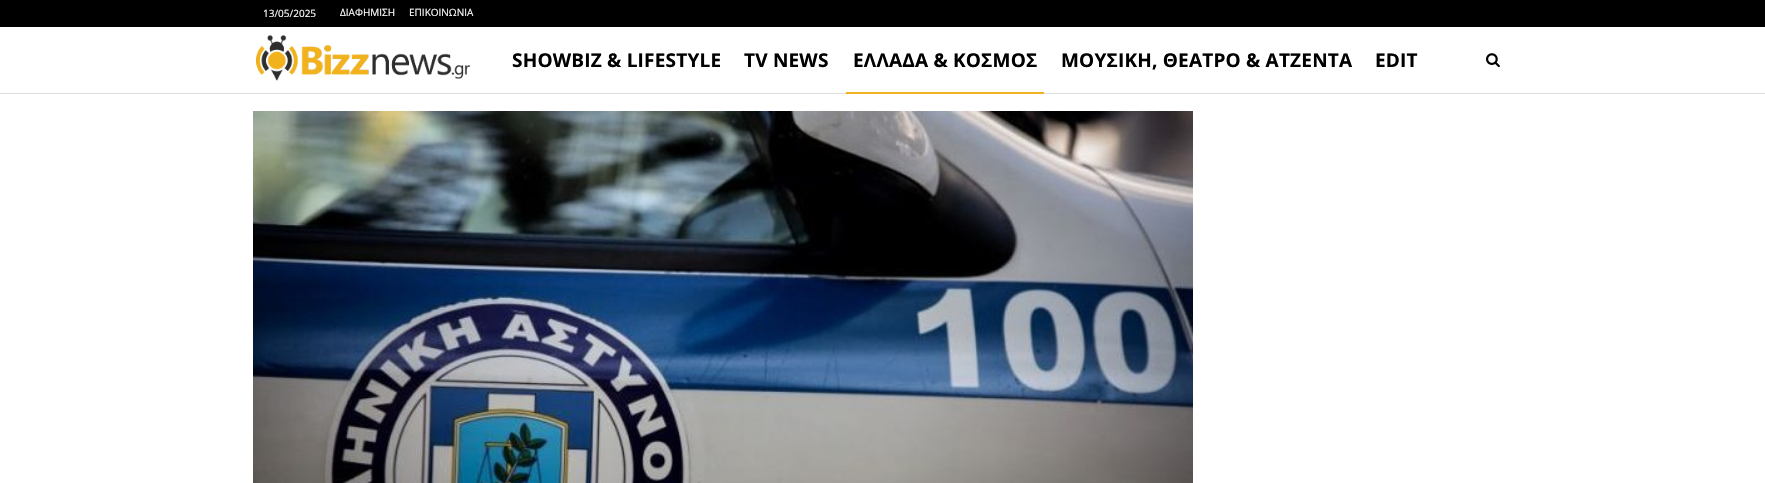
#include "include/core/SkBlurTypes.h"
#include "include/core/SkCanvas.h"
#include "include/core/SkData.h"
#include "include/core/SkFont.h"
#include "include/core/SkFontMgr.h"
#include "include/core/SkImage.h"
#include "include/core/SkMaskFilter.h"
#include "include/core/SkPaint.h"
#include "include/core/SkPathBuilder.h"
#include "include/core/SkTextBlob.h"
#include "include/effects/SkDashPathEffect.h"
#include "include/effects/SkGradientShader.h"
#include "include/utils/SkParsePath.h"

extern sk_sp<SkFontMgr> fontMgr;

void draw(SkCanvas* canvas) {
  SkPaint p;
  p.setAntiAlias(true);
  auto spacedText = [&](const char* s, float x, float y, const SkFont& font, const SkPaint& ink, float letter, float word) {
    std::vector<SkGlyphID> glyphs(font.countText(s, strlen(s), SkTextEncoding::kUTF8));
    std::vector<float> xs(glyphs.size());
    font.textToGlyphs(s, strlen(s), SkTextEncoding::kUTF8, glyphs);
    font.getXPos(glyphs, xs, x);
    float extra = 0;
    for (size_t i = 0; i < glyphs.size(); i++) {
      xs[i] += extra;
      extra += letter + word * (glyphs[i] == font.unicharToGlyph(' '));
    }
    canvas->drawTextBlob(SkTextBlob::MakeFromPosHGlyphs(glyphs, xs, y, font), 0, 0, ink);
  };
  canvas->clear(SK_ColorWHITE);
  p.setColor(SkColorSetRGB(222, 222, 222));
  canvas->drawRect(SkRect::MakeLTRB(0, 93, 1765, 94), p);
  p.setColor(SK_ColorBLACK);
  canvas->drawRect(SkRect::MakeLTRB(0, 0, 1765, 27), p);
  canvas->drawImageRect(SkImages::DeferredFromEncodedData(SkData::MakeFromFileName("images/1.png")), SkRect::MakeLTRB(255, 35, 470, 81), SkSamplingOptions());
  p.setColor(SkColorSetRGB(241, 178, 29));
  canvas->drawRect(SkRect::MakeLTRB(846, 92, 1044, 94), p);
  canvas->drawImageRect(SkImages::DeferredFromEncodedData(SkData::MakeFromFileName("images/2.png")), SkRect::MakeLTRB(1486, 53, 1500, 68), SkSamplingOptions());
  canvas->drawImageRect(SkImages::DeferredFromEncodedData(SkData::MakeFromFileName("images/3.png")), SkRect::MakeLTRB(253, 111, 1193, 483), SkSamplingOptions());
  SkFont font1(fontMgr->matchFamilyStyle("Open Sans", SkFontStyle::Normal()), 10);
  font1.setSubpixel(true);
  p.setColor(SK_ColorWHITE);
  canvas->drawString("13/05/2025", 263, 17, font1, p);
  canvas->drawString("ΔΙΑΦΗΜΙΣΗ", 340, 16, font1, p);
  canvas->drawString("ΕΠΙΚΟΙΝΩΝΙΑ", 409, 16, font1, p);
  SkFont font2(fontMgr->matchFamilyStyle("Open Sans", SkFontStyle::Bold()), 19);
  font2.setSubpixel(true);
  p.setColor(SK_ColorBLACK);
  spacedText("SHOWBIZ & LIFESTYLE", 512, 67, font2, p, 0.2f, 0);
  spacedText("TV NEWS", 744, 67, font2, p, 0.2f, 0);
  spacedText("ΕΛΛΑΔΑ & ΚΟΣΜΟΣ", 853, 67, font2, p, 0.2f, 0);
  spacedText("ΜΟΥΣΙΚΗ, ΘΕΑΤΡΟ & ΑΤΖΕΝΤΑ", 1061, 67, font2, p, 0.2f, 0);
  spacedText("EDIT", 1375, 67, font2, p, 0.2f, 0);
}
